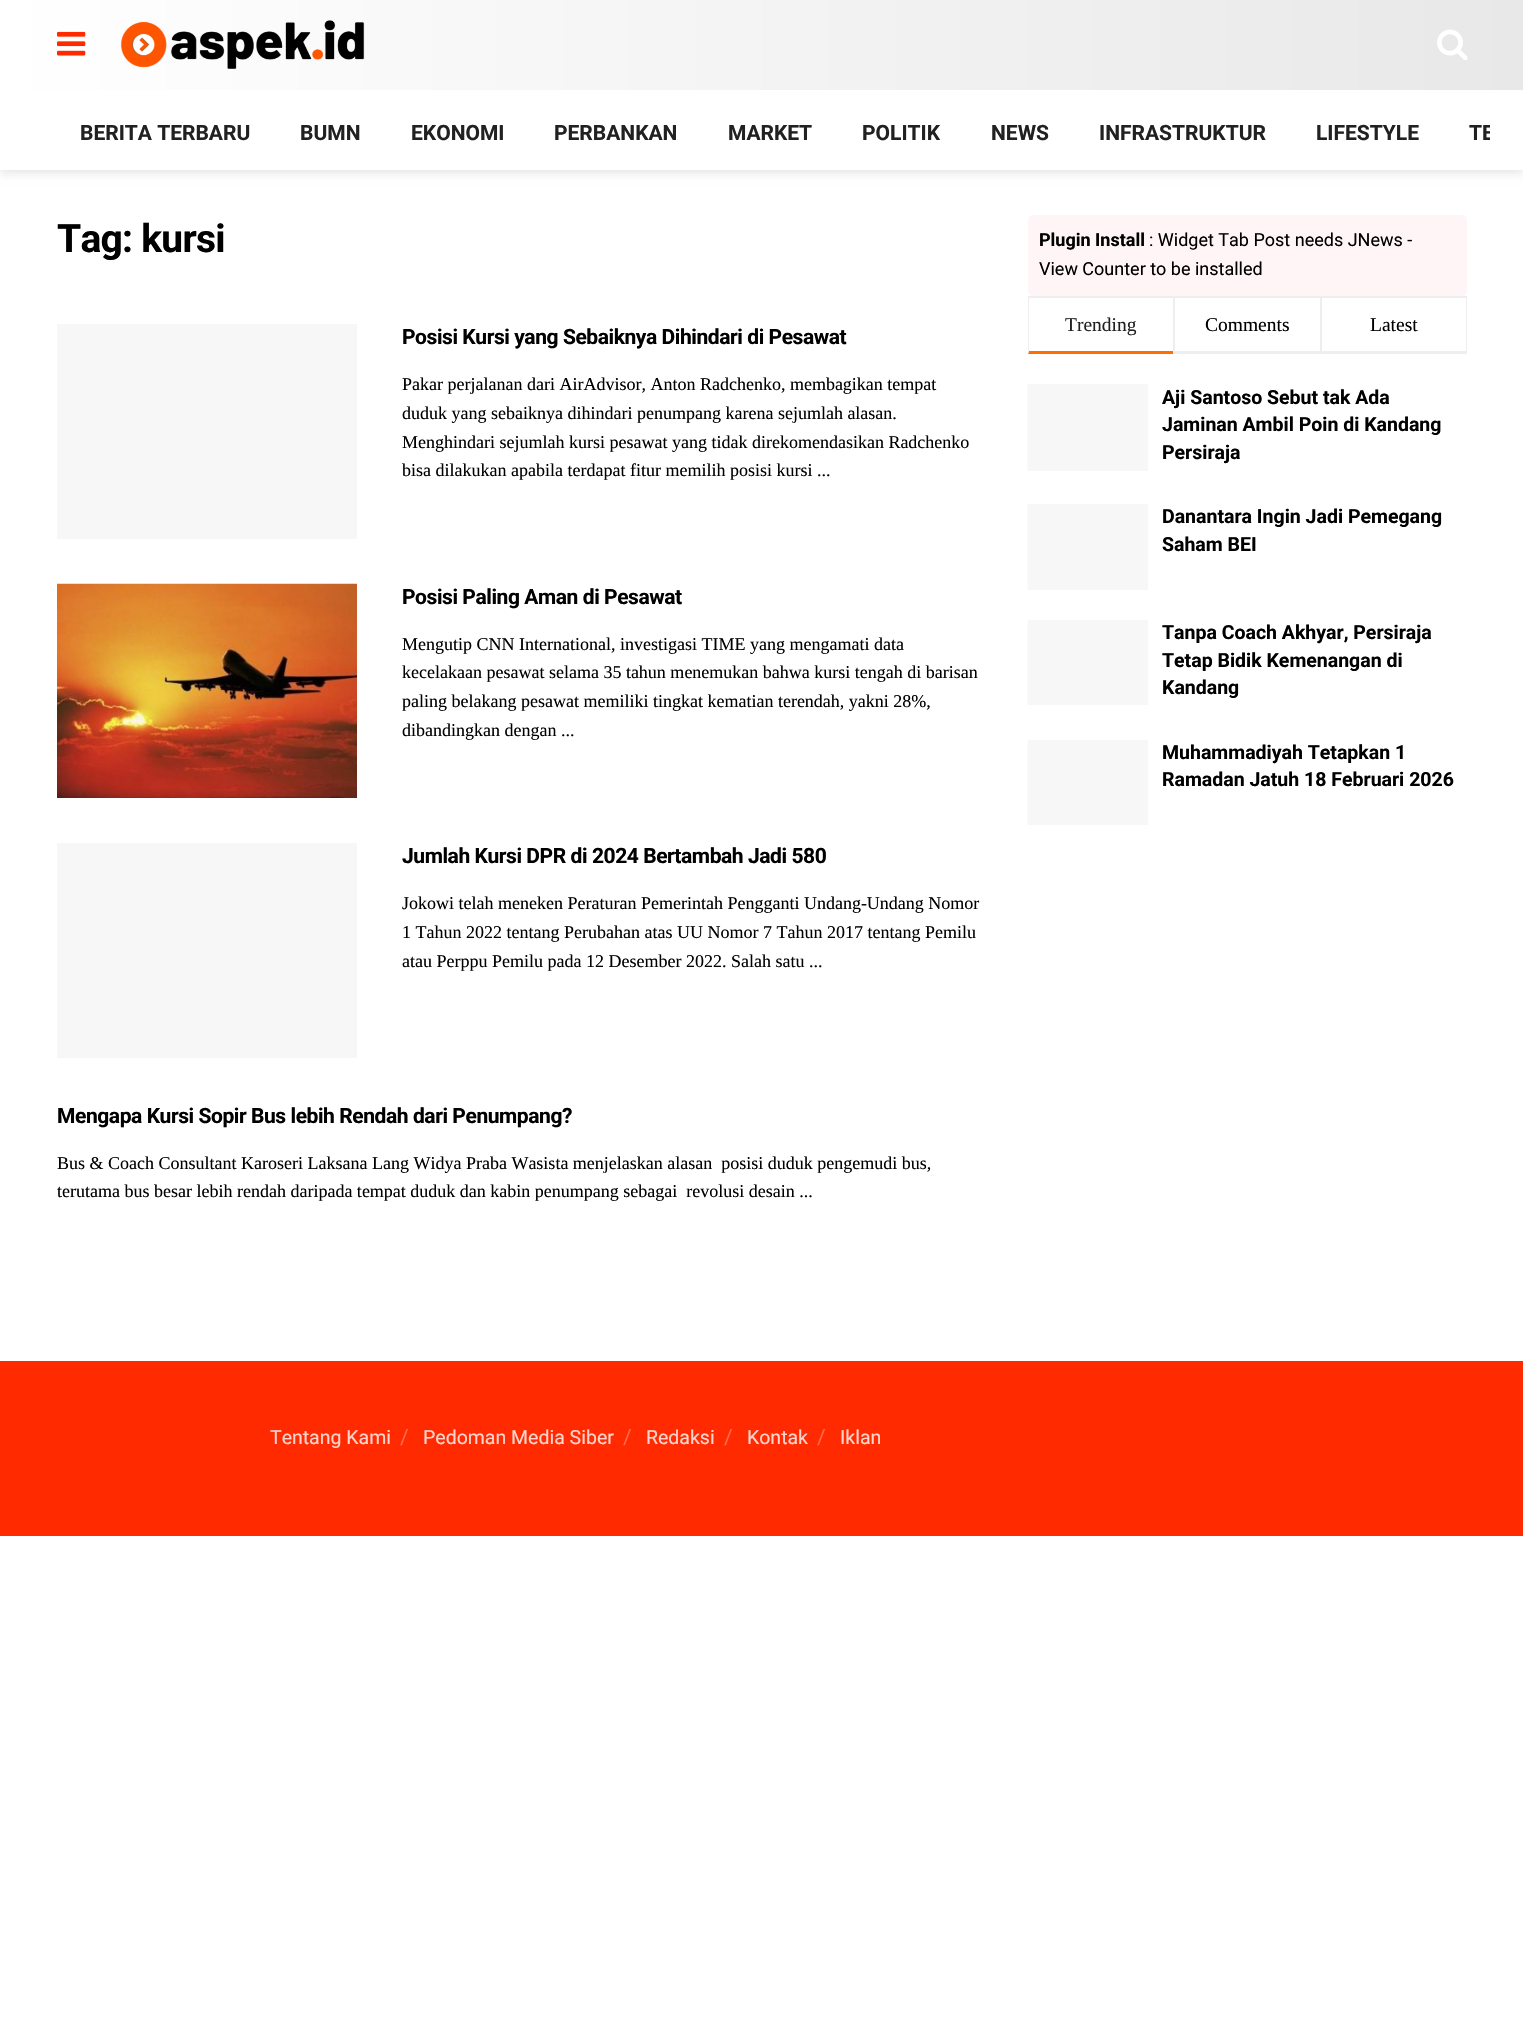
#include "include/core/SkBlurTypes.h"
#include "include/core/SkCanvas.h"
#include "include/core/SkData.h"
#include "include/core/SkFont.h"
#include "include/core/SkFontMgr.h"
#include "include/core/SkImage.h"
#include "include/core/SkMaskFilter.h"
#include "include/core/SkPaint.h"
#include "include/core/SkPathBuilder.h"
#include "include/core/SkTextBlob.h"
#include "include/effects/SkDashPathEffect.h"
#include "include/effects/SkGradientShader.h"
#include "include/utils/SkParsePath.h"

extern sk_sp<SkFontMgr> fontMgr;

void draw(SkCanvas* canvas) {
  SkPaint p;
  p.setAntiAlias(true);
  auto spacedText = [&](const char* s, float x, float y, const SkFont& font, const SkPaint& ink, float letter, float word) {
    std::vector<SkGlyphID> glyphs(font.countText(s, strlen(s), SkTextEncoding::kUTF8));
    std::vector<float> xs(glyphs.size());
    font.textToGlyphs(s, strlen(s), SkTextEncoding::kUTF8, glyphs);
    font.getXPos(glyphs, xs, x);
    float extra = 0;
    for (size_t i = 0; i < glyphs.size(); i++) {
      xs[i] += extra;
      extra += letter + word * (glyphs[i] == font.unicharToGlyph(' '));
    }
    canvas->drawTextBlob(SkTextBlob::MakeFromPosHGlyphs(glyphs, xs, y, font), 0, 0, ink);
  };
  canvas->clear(SK_ColorWHITE);
  p.setColor(SkColorSetARGB(26, 0, 0, 0));
  p.setMaskFilter(SkMaskFilter::MakeBlur(kNormal_SkBlurStyle, 4.5f));
  canvas->drawRect(SkRect::MakeLTRB(0, 3, 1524, 173), p);
  p.setMaskFilter(nullptr);
  p.setColor(SK_ColorWHITE);
  canvas->drawRect(SkRect::MakeLTRB(0, 90, 1523, 170), p);
  {
    const SkColor colors[] = {SK_ColorWHITE, SkColorSetRGB(232, 232, 232)};
    const float stops[] = {0, 1};
    const SkPoint ends[] = {{0, 45}, {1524, 45}};
    p.setShader(SkGradientShader::MakeLinear(ends, colors, stops, 2, SkTileMode::kClamp));
    p.setAlpha(255);
  }
  canvas->drawRect(SkRect::MakeLTRB(0, 0, 1523, 90), p);
  canvas->drawImageRect(SkImages::DeferredFromEncodedData(SkData::MakeFromFileName("images/1.png")), SkRect::MakeLTRB(57, 31, 86, 56), SkSamplingOptions());
  canvas->drawImageRect(SkImages::DeferredFromEncodedData(SkData::MakeFromFileName("images/2.png")), SkRect::MakeLTRB(120, 20, 365, 69), SkSamplingOptions());
  canvas->drawImageRect(SkImages::DeferredFromEncodedData(SkData::MakeFromFileName("images/3.png")), SkRect::MakeLTRB(1437, 29, 1468, 60), SkSamplingOptions());
  p.setShader(nullptr);
  p.setColor(SkColorSetRGB(247, 247, 247));
  canvas->drawRect(SkRect::MakeLTRB(57, 324, 357, 539), p);
  canvas->drawImageRect(SkImages::DeferredFromEncodedData(SkData::MakeFromFileName("images/4.png")), SkRect::MakeLTRB(57, 583, 357, 798), SkSamplingOptions());
  canvas->drawRect(SkRect::MakeLTRB(57, 843, 357, 1058), p);
  p.setColor(SkColorSetRGB(255, 245, 246));
  canvas->drawRoundRect(SkRect::MakeLTRB(1028, 215, 1467, 296), 5, 5, p);
  p.setColor(SkColorSetRGB(238, 238, 238));
  canvas->drawRect(SkRect::MakeLTRB(1028, 296, 1467, 298), p);
  p.setColor(SkColorSetRGB(255, 110, 0));
  canvas->drawPath(SkPathBuilder().moveTo(1173, 354).lineTo(1028, 354).lineTo(1029, 351).lineTo(1173, 351).close().detach(), p);
  p.setColor(SkColorSetRGB(238, 238, 238));
  canvas->drawPath(SkPathBuilder().moveTo(1028, 354).lineTo(1028, 296).lineTo(1029, 297).lineTo(1029, 351).close().detach(), p);
  canvas->drawRect(SkRect::MakeLTRB(1173, 351, 1320, 354), p);
  canvas->drawRect(SkRect::MakeLTRB(1173, 296, 1175, 354), p);
  canvas->drawRect(SkRect::MakeLTRB(1466, 296, 1467, 354), p);
  canvas->drawRect(SkRect::MakeLTRB(1320, 351, 1467, 354), p);
  canvas->drawRect(SkRect::MakeLTRB(1320, 296, 1322, 354), p);
  p.setColor(SkColorSetRGB(247, 247, 247));
  canvas->drawRect(SkRect::MakeLTRB(1028, 384, 1148, 471), p);
  p.setColor(SkColorSetRGB(251, 251, 251));
  canvas->drawRect(SkRect::MakeLTRB(1027, 384, 1028, 471), p);
  p.setColor(SkColorSetRGB(247, 247, 247));
  canvas->drawRect(SkRect::MakeLTRB(1028, 504, 1148, 590), p);
  p.setColor(SkColorSetRGB(251, 251, 251));
  canvas->drawRect(SkRect::MakeLTRB(1027, 504, 1028, 589), p);
  p.setColor(SkColorSetRGB(247, 247, 247));
  canvas->drawRect(SkRect::MakeLTRB(1028, 620, 1148, 705), p);
  p.setColor(SkColorSetRGB(251, 251, 251));
  canvas->drawRect(SkRect::MakeLTRB(1027, 620, 1028, 705), p);
  p.setColor(SkColorSetRGB(247, 247, 247));
  canvas->drawRect(SkRect::MakeLTRB(1028, 740, 1148, 825), p);
  p.setColor(SkColorSetRGB(251, 251, 251));
  canvas->drawRect(SkRect::MakeLTRB(1027, 740, 1028, 825), p);
  p.setColor(SkColorSetRGB(255, 42, 0));
  canvas->drawRect(SkRect::MakeLTRB(0, 1361, 1523, 1536), p);
  SkFont font1(fontMgr->matchFamilyStyle("Roboto", SkFontStyle::Bold()), 21);
  font1.setSubpixel(true);
  p.setColor(SkColorSetRGB(33, 33, 33));
  canvas->drawString("BERITA TERBARU", 80, 140, font1, p);
  canvas->drawString("BUMN", 300, 140, font1, p);
  canvas->drawString("EKONOMI", 411, 140, font1, p);
  canvas->drawString("PERBANKAN", 554, 140, font1, p);
  canvas->drawString("MARKET", 728, 140, font1, p);
  canvas->drawString("POLITIK", 862, 140, font1, p);
  canvas->drawString("NEWS", 991, 140, font1, p);
  canvas->drawString("INFRASTRUKTUR", 1099, 140, font1, p);
  canvas->drawString("LIFESTYLE", 1316, 140, font1, p);
  canvas->save();
  canvas->clipRect(SkRect::MakeLTRB(35, 95, 1490, 170));
  canvas->drawString("TE", 1469, 140, font1, p);
  canvas->restore();
  SkFont font2(fontMgr->matchFamilyStyle("Roboto", SkFontStyle::Bold()), 39);
  font2.setSubpixel(true);
  p.setColor(SK_ColorBLACK);
  spacedText("Tag: kursi", 57, 252, font2, p, -0.75f, 0);
  spacedText("Posisi Kursi yang Sebaiknya Dihindari di Pesawat", 402, 344, font1, p, -0.42f, 0);
  SkFont font3(fontMgr->matchFamilyStyle("Liberation Serif", SkFontStyle::Normal()), 18);
  font3.setSubpixel(true);
  canvas->drawString("Pakar perjalanan dari AirAdvisor, Anton Radchenko, membagikan tempat", 402, 390, font3, p);
  canvas->drawString("duduk yang sebaiknya dihindari penumpang karena sejumlah alasan.", 402, 419, font3, p);
  canvas->drawString("Menghindari sejumlah kursi pesawat yang tidak direkomendasikan Radchenko", 402, 448, font3, p);
  canvas->drawString("bisa dilakukan apabila terdapat fitur memilih posisi kursi ...", 402, 476, font3, p);
  spacedText("Posisi Paling Aman di Pesawat", 402, 604, font1, p, -0.42f, 0);
  canvas->drawString("Mengutip CNN International, investigasi TIME yang mengamati data", 402, 650, font3, p);
  canvas->drawString("kecelakaan pesawat selama 35 tahun menemukan bahwa kursi tengah di barisan", 402, 678, font3, p);
  canvas->drawString("paling belakang pesawat memiliki tingkat kematian terendah, yakni 28%,", 402, 707, font3, p);
  canvas->drawString("dibandingkan dengan ...", 402, 736, font3, p);
  spacedText("Jumlah Kursi DPR di 2024 Bertambah Jadi 580", 402, 863, font1, p, -0.42f, 0);
  canvas->drawString("Jokowi telah meneken Peraturan Pemerintah Pengganti Undang-Undang Nomor", 402, 909, font3, p);
  canvas->drawString("1 Tahun 2022 tentang Perubahan atas UU Nomor 7 Tahun 2017 tentang Pemilu", 402, 938, font3, p);
  canvas->drawString("atau Perppu Pemilu pada 12 Desember 2022. Salah satu ...", 402, 967, font3, p);
  spacedText("Mengapa Kursi Sopir Bus lebih Rendah dari Penumpang?", 57, 1123, font1, p, -0.42f, 0);
  canvas->drawString("Bus & Coach Consultant Karoseri Laksana Lang Widya Praba Wasista menjelaskan alasan  posisi duduk pengemudi bus,", 57, 1169, font3, p);
  canvas->drawString("terutama bus besar lebih rendah daripada tempat duduk dan kabin penumpang sebagai  revolusi desain ...", 57, 1197, font3, p);
  SkFont font4(fontMgr->matchFamilyStyle("Roboto", SkFontStyle::Bold()), 18);
  font4.setSubpixel(true);
  canvas->drawString("Plugin Install", 1039, 246, font4, p);
  SkFont font5(fontMgr->matchFamilyStyle("Roboto", SkFontStyle::Normal()), 18);
  font5.setSubpixel(true);
  canvas->drawString(": Widget Tab Post needs JNews -", 1149, 246, font5, p);
  canvas->drawString("View Counter to be installed", 1039, 275, font5, p);
  SkFont font6(fontMgr->matchFamilyStyle("Liberation Serif", SkFontStyle::Normal()), 19.5f);
  font6.setSubpixel(true);
  p.setColor(SkColorSetRGB(33, 33, 33));
  canvas->drawString("Trending", 1065, 331, font6, p);
  p.setColor(SK_ColorBLACK);
  canvas->drawString("Comments", 1205, 331, font6, p);
  canvas->drawString("Latest", 1370, 331, font6, p);
  SkFont font7(fontMgr->matchFamilyStyle("Roboto", SkFontStyle::Bold()), 19.5f);
  font7.setSubpixel(true);
  canvas->drawString("Aji Santoso Sebut tak Ada", 1162, 404, font7, p);
  canvas->drawString("Jaminan Ambil Poin di Kandang", 1162, 431, font7, p);
  canvas->drawString("Persiraja", 1162, 459, font7, p);
  canvas->drawString("Danantara Ingin Jadi Pemegang", 1162, 523, font7, p);
  canvas->drawString("Saham BEI", 1162, 551, font7, p);
  canvas->drawString("Tanpa Coach Akhyar, Persiraja", 1162, 639, font7, p);
  canvas->drawString("Tetap Bidik Kemenangan di", 1162, 667, font7, p);
  canvas->drawString("Kandang", 1162, 694, font7, p);
  canvas->drawString("Muhammadiyah Tetapkan 1", 1162, 759, font7, p);
  canvas->drawString("Ramadan Jatuh 18 Februari 2026", 1162, 786, font7, p);
  SkFont font8(fontMgr->matchFamilyStyle("Roboto", SkFontStyle::Normal()), 19.5f);
  font8.setSubpixel(true);
  p.setColor(SkColorSetRGB(255, 212, 204));
  canvas->drawString("Tentang Kami", 270, 1444, font8, p);
  SkFont font9(fontMgr->matchFamilyStyle("Roboto", SkFontStyle::Normal()), 21);
  font9.setSubpixel(true);
  p.setColor(SkColorSetRGB(255, 106, 77));
  canvas->drawString("/", 400, 1444, font9, p);
  p.setColor(SkColorSetRGB(255, 212, 204));
  canvas->drawString("Pedoman Media Siber", 423, 1444, font8, p);
  p.setColor(SkColorSetRGB(255, 106, 77));
  canvas->drawString("/", 623, 1444, font9, p);
  p.setColor(SkColorSetRGB(255, 212, 204));
  canvas->drawString("Redaksi", 646, 1444, font8, p);
  p.setColor(SkColorSetRGB(255, 106, 77));
  canvas->drawString("/", 724, 1444, font9, p);
  p.setColor(SkColorSetRGB(255, 212, 204));
  canvas->drawString("Kontak", 747, 1444, font8, p);
  p.setColor(SkColorSetRGB(255, 106, 77));
  canvas->drawString("/", 817, 1444, font9, p);
  p.setColor(SkColorSetRGB(255, 212, 204));
  canvas->drawString("Iklan", 840, 1444, font8, p);
}
